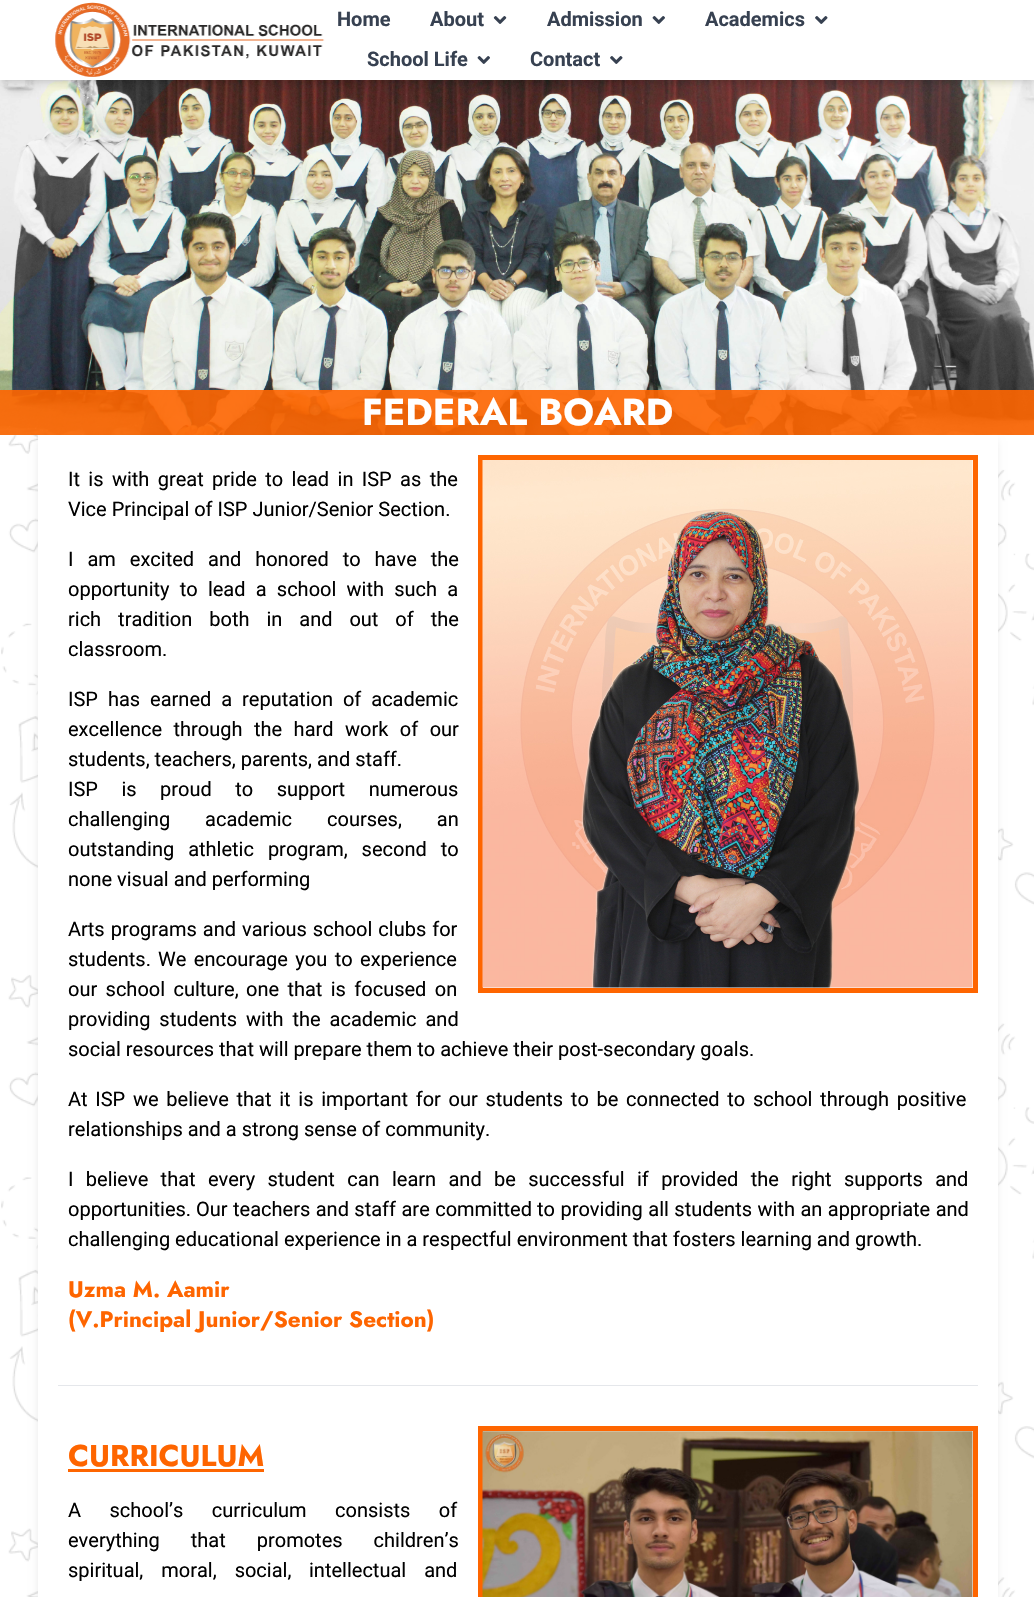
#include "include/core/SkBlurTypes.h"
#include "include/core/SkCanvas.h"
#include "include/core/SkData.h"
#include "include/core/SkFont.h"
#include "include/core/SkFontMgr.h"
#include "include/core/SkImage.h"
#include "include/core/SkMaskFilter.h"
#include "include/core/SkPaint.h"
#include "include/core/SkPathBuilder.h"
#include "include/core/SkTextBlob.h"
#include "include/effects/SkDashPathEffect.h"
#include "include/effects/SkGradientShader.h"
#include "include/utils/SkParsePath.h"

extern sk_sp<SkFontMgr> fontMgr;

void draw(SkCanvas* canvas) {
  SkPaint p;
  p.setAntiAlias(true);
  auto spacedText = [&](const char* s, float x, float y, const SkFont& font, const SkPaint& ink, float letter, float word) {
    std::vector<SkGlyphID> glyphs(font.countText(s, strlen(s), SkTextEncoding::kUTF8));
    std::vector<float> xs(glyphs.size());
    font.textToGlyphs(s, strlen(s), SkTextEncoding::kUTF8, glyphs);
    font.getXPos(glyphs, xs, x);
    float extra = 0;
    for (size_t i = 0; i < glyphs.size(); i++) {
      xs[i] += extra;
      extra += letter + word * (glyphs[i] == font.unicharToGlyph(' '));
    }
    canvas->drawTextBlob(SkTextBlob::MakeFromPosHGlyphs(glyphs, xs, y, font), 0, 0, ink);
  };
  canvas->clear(SK_ColorWHITE);
  canvas->drawImageRect(SkImages::DeferredFromEncodedData(SkData::MakeFromFileName("images/1.png")), SkRect::MakeLTRB(1, 435, 1034, 1597), SkSamplingOptions());
  p.setColor(SkColorSetARGB(26, 0, 0, 0));
  p.setMaskFilter(SkMaskFilter::MakeBlur(kNormal_SkBlurStyle, 4));
  canvas->drawRect(SkRect::MakeLTRB(39, 441, 996, 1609), p);
  p.setMaskFilter(nullptr);
  canvas->drawImageRect(SkImages::DeferredFromEncodedData(SkData::MakeFromFileName("images/6.png")), SkRect::MakeLTRB(0, 80, 1034, 435), SkSamplingOptions());
  p.setMaskFilter(SkMaskFilter::MakeBlur(kNormal_SkBlurStyle, 2.5f));
  canvas->drawRect(SkRect::MakeLTRB(3, 5, 1033, 80), p);
  p.setMaskFilter(nullptr);
  p.setMaskFilter(SkMaskFilter::MakeBlur(kNormal_SkBlurStyle, 4));
  canvas->drawRect(SkRect::MakeLTRB(1, 6, 1034, 84), p);
  p.setMaskFilter(nullptr);
  p.setColor(SK_ColorWHITE);
  canvas->drawRect(SkRect::MakeLTRB(0, 0, 1034, 80), p);
  canvas->drawImageRect(SkImages::DeferredFromEncodedData(SkData::MakeFromFileName("images/2.png")), SkRect::MakeLTRB(55, 2, 325, 77), SkSamplingOptions());
  canvas->drawImageRect(SkImages::DeferredFromEncodedData(SkData::MakeFromFileName("images/3.png")), SkRect::MakeLTRB(493, 16, 507, 24), SkSamplingOptions());
  canvas->drawImageRect(SkImages::DeferredFromEncodedData(SkData::MakeFromFileName("images/4.png")), SkRect::MakeLTRB(652, 16, 665, 24), SkSamplingOptions());
  canvas->drawImageRect(SkImages::DeferredFromEncodedData(SkData::MakeFromFileName("images/5.png")), SkRect::MakeLTRB(815, 16, 828, 24), SkSamplingOptions());
  canvas->drawImageRect(SkImages::DeferredFromEncodedData(SkData::MakeFromFileName("images/4.png")), SkRect::MakeLTRB(477, 56, 490, 64), SkSamplingOptions());
  canvas->drawImageRect(SkImages::DeferredFromEncodedData(SkData::MakeFromFileName("images/5.png")), SkRect::MakeLTRB(610, 56, 623, 64), SkSamplingOptions());
  p.setColor(SkColorSetARGB(230, 254, 101, 0));
  canvas->drawRect(SkRect::MakeLTRB(0, 390, 1034, 435), p);
  p.setColor(SK_ColorWHITE);
  canvas->drawRect(SkRect::MakeLTRB(38, 435, 998, 1597), p);
  p.setStyle(SkPaint::kStroke_Style);
  p.setStrokeWidth(5);
  p.setColor(SkColorSetRGB(254, 101, 0));
  canvas->drawRect(SkRect::MakeLTRB(480.5f, 457.5f, 975.5f, 990.5f), p);
  canvas->drawImageRect(SkImages::DeferredFromEncodedData(SkData::MakeFromFileName("images/7.png")), SkRect::MakeLTRB(482, 460, 973, 988), SkSamplingOptions());
  p.setStyle(SkPaint::kFill_Style);
  p.setColor(SkColorSetRGB(229, 231, 235));
  canvas->drawRect(SkRect::MakeLTRB(58, 1385, 978, 1386), p);
  p.setColor(SkColorSetRGB(254, 101, 0));
  canvas->drawRect(SkRect::MakeLTRB(68, 1469, 264, 1472), p);
  p.setStyle(SkPaint::kStroke_Style);
  canvas->drawRect(SkRect::MakeLTRB(480.5f, 1428.5f, 975.5f, 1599.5f), p);
  canvas->drawImageRect(SkImages::DeferredFromEncodedData(SkData::MakeFromFileName("images/8.png")), SkRect::MakeLTRB(482, 1431, 973, 1597), SkSamplingOptions());
  SkFont font1(fontMgr->matchFamilyStyle("Roboto", SkFontStyle::Bold()), 20);
  font1.setSubpixel(true);
  p.setStyle(SkPaint::kFill_Style);
  p.setColor(SkColorSetRGB(55, 65, 81));
  canvas->drawString("Home", 337, 26, font1, p);
  canvas->drawString("About", 430, 26, font1, p);
  canvas->drawString("Admission", 547, 26, font1, p);
  canvas->drawString("Academics", 705, 26, font1, p);
  canvas->drawString("School Life", 367, 66, font1, p);
  canvas->drawString("Contact", 530, 66, font1, p);
  SkFont font2(fontMgr->matchFamilyStyle("Jost", SkFontStyle::Bold()), 37.5f);
  font2.setSubpixel(true);
  p.setColor(SK_ColorWHITE);
  canvas->drawString("FEDERAL BOARD", 362, 425, font2, p);
  SkFont font3(fontMgr->matchFamilyStyle("Roboto", SkFontStyle::Normal()), 20);
  font3.setSubpixel(true);
  p.setColor(SK_ColorBLACK);
  spacedText("It is with great pride to lead in ISP as the", 68, 486, font3, p, 0, 3.4f);
  canvas->drawString("Vice Principal of ISP Junior/Senior Section.", 68, 516, font3, p);
  spacedText("I am excited and honored to have the", 68, 566, font3, p, 0, 9);
  spacedText("opportunity to lead a school with such a", 68, 596, font3, p, 0, 5.25f);
  spacedText("rich tradition both in and out of the", 68, 626, font3, p, 0, 12);
  canvas->drawString("classroom.", 68, 656, font3, p);
  spacedText("ISP has earned a reputation of academic", 68, 706, font3, p, 0, 5);
  spacedText("excellence through the hard work of our", 68, 736, font3, p, 0, 6.5f);
  canvas->drawString("students, teachers, parents, and staff.", 68, 766, font3, p);
  spacedText("ISP is proud to support numerous", 68, 796, font3, p, 0, 18.5f);
  spacedText("challenging academic courses, an", 68, 826, font3, p, 0, 30);
  spacedText("outstanding athletic program, second to", 68, 856, font3, p, 0, 9);
  canvas->drawString("none visual and performing", 68, 886, font3, p);
  spacedText("Arts programs and various school clubs for", 68, 936, font3, p, 0, 1);
  canvas->drawString("students.", 68, 966, font3, p);
  spacedText("We encourage you to experience", 158, 966, font3, p, 0, 2.5f);
  spacedText("our school culture,", 68, 996, font3, p, 0, 3.4f);
  spacedText("one that is focused on", 246, 996, font3, p, 0, 3.4f);
  spacedText("providing students with the academic and", 68, 1026, font3, p, 0, 4);
  canvas->drawString("social resources that will prepare them to achieve their post-secondary goals.", 68, 1056, font3, p);
  spacedText("At ISP we believe that it is important for our students to be connected to school through positive", 68, 1106, font3, p, 0, 2.75f);
  canvas->drawString("relationships and a strong sense of community.", 68, 1136, font3, p);
  spacedText("I believe that every student can learn and be successful if provided the right supports and", 68, 1186, font3, p, 0, 7.4f);
  canvas->drawString("opportunities.", 68, 1216, font3, p);
  spacedText("Our teachers and staff are committed", 196, 1216, font3, p, 0, 0.5f);
  spacedText("to providing all students with an appropriate and", 537, 1216, font3, p, 0, 0.5f);
  canvas->drawString("challenging educational experience in a respectful environment that fosters learning and growth.", 68, 1246, font3, p);
  SkFont font4(fontMgr->matchFamilyStyle("Jost", SkFontStyle::Bold()), 22.5f);
  font4.setSubpixel(true);
  p.setColor(SkColorSetRGB(254, 101, 0));
  canvas->drawString("Uzma M. Aamir", 68, 1297, font4, p);
  canvas->drawString("(V.Principal Junior/Senior Section)", 68, 1327, font4, p);
  SkFont font5(fontMgr->matchFamilyStyle("Jost", SkFontStyle::Bold()), 30);
  font5.setSubpixel(true);
  canvas->drawString("CURRICULUM", 68, 1466, font5, p);
  p.setColor(SK_ColorBLACK);
  spacedText("A school’s curriculum consists of", 68, 1517, font3, p, 0, 23.5f);
  spacedText("everything that promotes children’s", 68, 1547, font3, p, 0, 26);
  spacedText("spiritual, moral, social,", 68, 1577, font3, p, 0, 13);
  spacedText("intellectual and", 309, 1577, font3, p, 0, 13);
}
